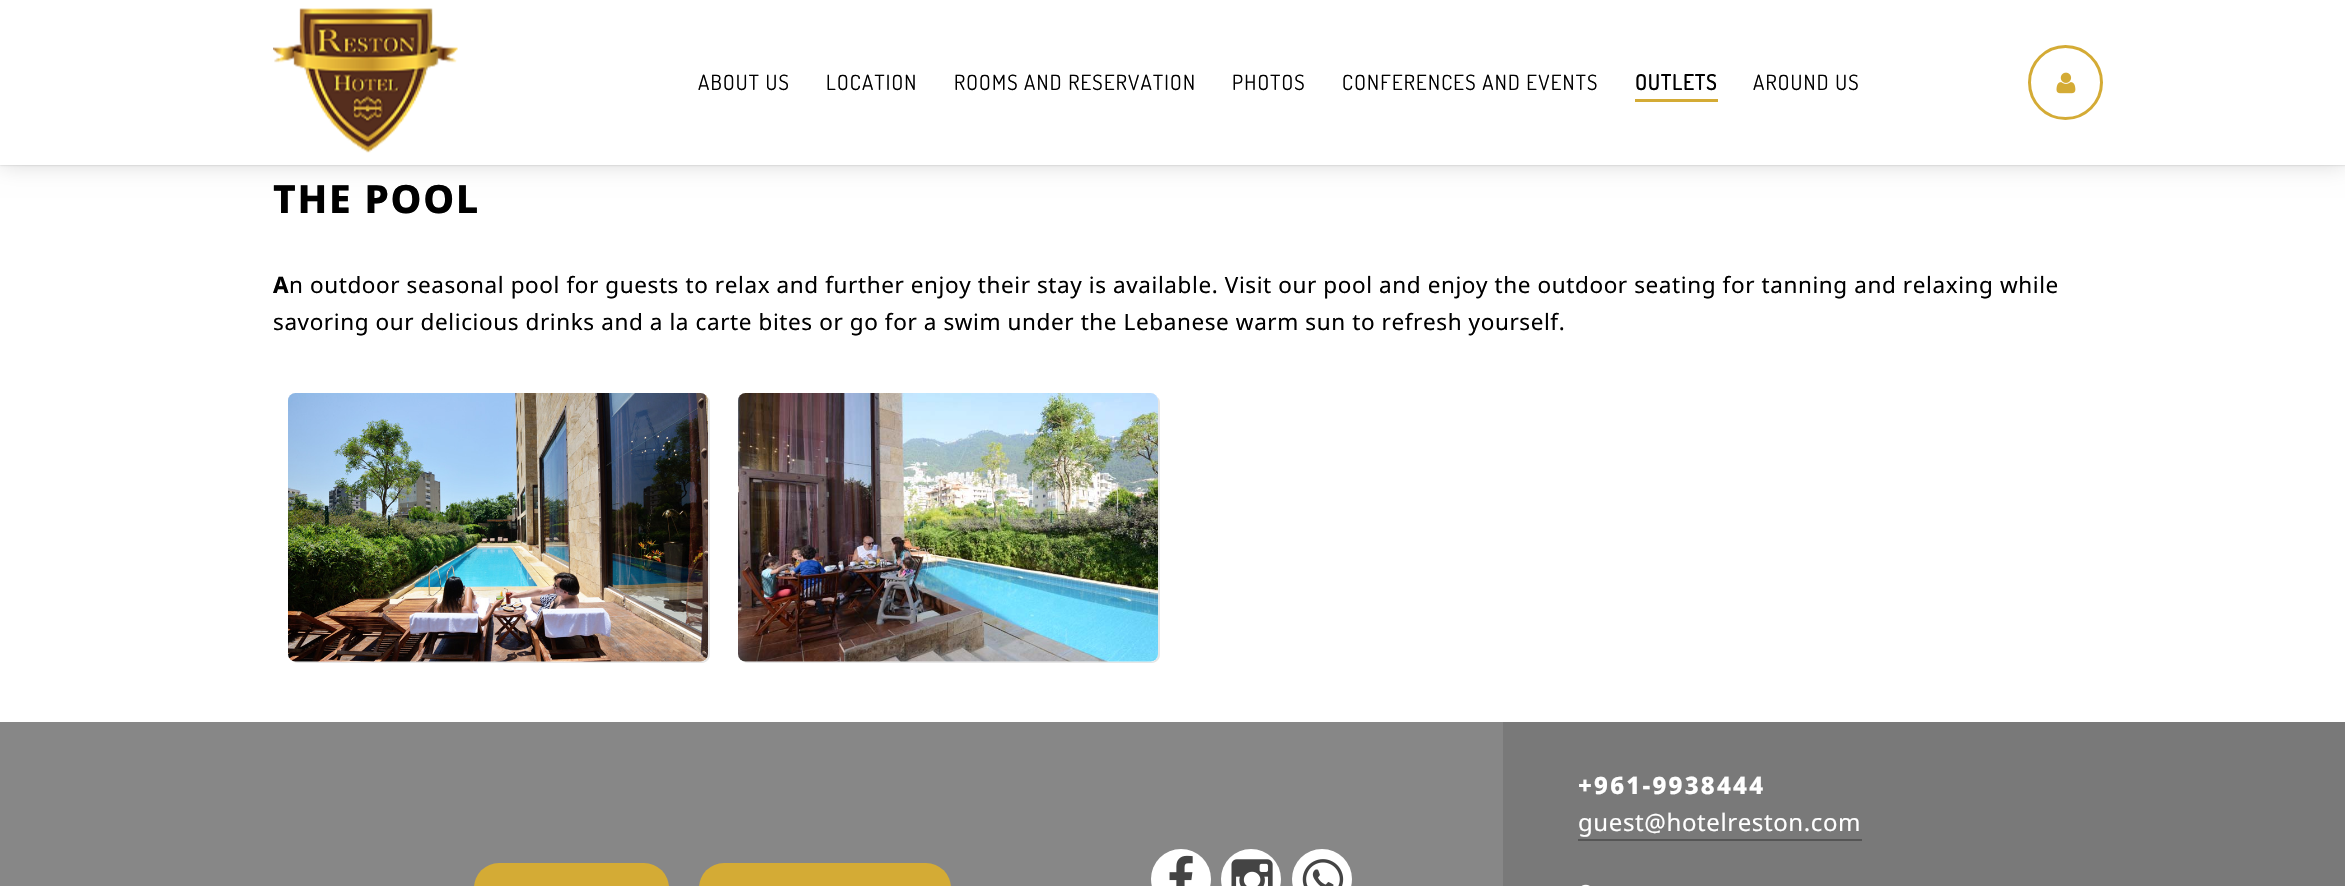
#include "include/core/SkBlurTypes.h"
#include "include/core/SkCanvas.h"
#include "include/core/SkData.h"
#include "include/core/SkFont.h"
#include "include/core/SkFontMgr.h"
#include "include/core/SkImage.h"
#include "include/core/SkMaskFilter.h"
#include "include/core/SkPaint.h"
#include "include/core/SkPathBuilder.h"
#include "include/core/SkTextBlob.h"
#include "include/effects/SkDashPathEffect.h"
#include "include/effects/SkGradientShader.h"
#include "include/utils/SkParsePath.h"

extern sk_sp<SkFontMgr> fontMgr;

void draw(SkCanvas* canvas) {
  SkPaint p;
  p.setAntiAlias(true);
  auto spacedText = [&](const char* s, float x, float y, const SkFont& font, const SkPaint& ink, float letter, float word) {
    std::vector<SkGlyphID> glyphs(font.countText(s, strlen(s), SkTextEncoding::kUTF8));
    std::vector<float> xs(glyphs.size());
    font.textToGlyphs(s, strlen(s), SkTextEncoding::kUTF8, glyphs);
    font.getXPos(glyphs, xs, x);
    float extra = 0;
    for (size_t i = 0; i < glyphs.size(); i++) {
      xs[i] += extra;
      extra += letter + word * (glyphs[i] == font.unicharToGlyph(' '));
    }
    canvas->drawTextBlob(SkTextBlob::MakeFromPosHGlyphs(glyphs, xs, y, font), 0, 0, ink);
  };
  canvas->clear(SK_ColorWHITE);
  p.setColor(SkColorSetARGB(38, 0, 0, 0));
  p.setMaskFilter(SkMaskFilter::MakeBlur(kNormal_SkBlurStyle, 11));
  canvas->drawRect(SkRect::MakeLTRB(0, 0, 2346, 165), p);
  p.setMaskFilter(nullptr);
  p.setColor(SkColorSetARGB(51, 0, 0, 0));
  p.setMaskFilter(SkMaskFilter::MakeBlur(kNormal_SkBlurStyle, 1));
  canvas->drawRect(SkRect::MakeLTRB(0, 0, 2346, 165), p);
  p.setMaskFilter(nullptr);
  p.setColor(SK_ColorWHITE);
  canvas->drawRect(SkRect::MakeLTRB(0, 0, 2345, 165), p);
  canvas->drawImageRect(SkImages::DeferredFromEncodedData(SkData::MakeFromFileName("images/1.png")), SkRect::MakeLTRB(273, 8, 458, 153), SkSamplingOptions());
  p.setColor(SkColorSetRGB(212, 171, 53));
  canvas->drawRect(SkRect::MakeLTRB(1635, 99, 1718, 102), p);
  p.setStyle(SkPaint::kStroke_Style);
  p.setStrokeWidth(3);
  canvas->drawCircle(2065.5f, 82.5f, 36, p);
  canvas->drawImageRect(SkImages::DeferredFromEncodedData(SkData::MakeFromFileName("images/2.png")), SkRect::MakeLTRB(2056, 72, 2076, 94), SkSamplingOptions());
  p.setStyle(SkPaint::kFill_Style);
  p.setColor(SkColorSetRGB(230, 230, 230));
  canvas->drawPath(SkPathBuilder().moveTo(293, 661).cubicTo(294, 662, 296, 663, 298, 663).lineTo(702, 663).cubicTo(706, 663, 710, 659, 710, 655).lineTo(710, 403).cubicTo(710, 400, 709, 398, 707, 397).cubicTo(708, 398, 708, 399, 708, 400).lineTo(708, 654).cubicTo(708, 658, 705, 662, 700, 662).lineTo(296, 662).close().detach(), p);
  p.setColor(SkColorSetRGB(245, 245, 245));
  canvas->drawRoundRect(SkRect::MakeLTRB(288, 393, 708, 662), 8, 8, p);
  canvas->drawImageRect(SkImages::DeferredFromEncodedData(SkData::MakeFromFileName("images/3.png")), SkRect::MakeLTRB(288, 393, 708, 662), SkSamplingOptions());
  p.setColor(SkColorSetRGB(230, 230, 230));
  canvas->drawPath(SkPathBuilder().moveTo(743, 661).cubicTo(744, 662, 746, 663, 748, 663).lineTo(1152, 663).cubicTo(1156, 663, 1160, 659, 1160, 655).lineTo(1160, 403).cubicTo(1160, 400, 1159, 398, 1157, 397).cubicTo(1158, 398, 1158, 399, 1158, 400).lineTo(1158, 654).cubicTo(1158, 658, 1155, 662, 1150, 662).lineTo(746, 662).close().detach(), p);
  p.setColor(SkColorSetRGB(245, 245, 245));
  canvas->drawRoundRect(SkRect::MakeLTRB(738, 393, 1158, 662), 8, 8, p);
  canvas->drawImageRect(SkImages::DeferredFromEncodedData(SkData::MakeFromFileName("images/4.png")), SkRect::MakeLTRB(738, 393, 1158, 662), SkSamplingOptions());
  p.setColor(SkColorSetRGB(135, 135, 135));
  canvas->drawRect(SkRect::MakeLTRB(0, 722, 1503, 886), p);
  p.setColor(SkColorSetRGB(121, 121, 121));
  canvas->drawRect(SkRect::MakeLTRB(1503, 722, 2345, 886), p);
  p.setColor(SkColorSetRGB(85, 85, 85));
  canvas->drawRect(SkRect::MakeLTRB(1578, 839, 1862, 841), p);
  canvas->drawImageRect(SkImages::DeferredFromEncodedData(SkData::MakeFromFileName("images/5.png")), SkRect::MakeLTRB(1581, 884, 1590, 886), SkSamplingOptions());
  p.setColor(SkColorSetRGB(212, 171, 53));
  canvas->drawRoundRect(SkRect::MakeLTRB(474, 863, 669, 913), 27, 27, p);
  canvas->drawRoundRect(SkRect::MakeLTRB(699, 863, 951, 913), 27, 27, p);
  p.setColor(SK_ColorWHITE);
  canvas->drawCircle(1181, 879, 30, p);
  canvas->drawImageRect(SkImages::DeferredFromEncodedData(SkData::MakeFromFileName("images/6.png")), SkRect::MakeLTRB(1169, 855, 1193, 886), SkSamplingOptions());
  canvas->drawCircle(1251, 879, 30, p);
  canvas->drawImageRect(SkImages::DeferredFromEncodedData(SkData::MakeFromFileName("images/7.png")), SkRect::MakeLTRB(1231, 859, 1273, 886), SkSamplingOptions());
  canvas->drawCircle(1322, 879, 30, p);
  canvas->drawImageRect(SkImages::DeferredFromEncodedData(SkData::MakeFromFileName("images/8.png")), SkRect::MakeLTRB(1302, 859, 1344, 886), SkSamplingOptions());
  SkFont font1(fontMgr->matchFamilyStyle("Dosis", SkFontStyle::Normal()), 21);
  font1.setSubpixel(true);
  p.setColor(SK_ColorBLACK);
  spacedText("ABOUT US", 698, 90, font1, p, 1.2f, 0);
  spacedText("LOCATION", 826, 90, font1, p, 1.2f, 0);
  spacedText("ROOMS AND RESERVATION", 954, 90, font1, p, 1.2f, 0);
  spacedText("PHOTOS", 1232, 90, font1, p, 1.2f, 0);
  spacedText("CONFERENCES AND EVENTS", 1342, 90, font1, p, 1.2f, 0);
  SkFont font2(fontMgr->matchFamilyStyle("Dosis", SkFontStyle::Bold()), 21);
  font2.setSubpixel(true);
  spacedText("OUTLETS", 1635, 90, font2, p, 1.2f, 0);
  spacedText("AROUND US", 1753, 90, font1, p, 1.2f, 0);
  SkFont font3(fontMgr->matchFamilyStyle("Noto Sans", SkFontStyle(800, SkFontStyle::kNormal_Width, SkFontStyle::kUpright_Slant)), 39);
  font3.setSubpixel(true);
  spacedText("THE POOL", 273, 213, font3, p, 1.75f, 0);
  SkFont font4(fontMgr->matchFamilyStyle("Noto Sans", SkFontStyle::Bold()), 22.5f);
  font4.setSubpixel(true);
  spacedText("A", 273, 293, font4, p, 0.6f, 0);
  SkFont font5(fontMgr->matchFamilyStyle("Noto Sans", SkFontStyle::Normal()), 22.5f);
  font5.setSubpixel(true);
  spacedText("n outdoor seasonal pool for guests to relax and further enjoy their stay is available. Visit our pool and enjoy the outdoor seating for tanning and relaxing while", 289, 293, font5, p, 0.6f, 0);
  spacedText("savoring our delicious drinks and a la carte bites or go for a swim under the Lebanese warm sun to refresh yourself.", 273, 330, font5, p, 0.6f, 0);
  SkFont font6(fontMgr->matchFamilyStyle("Noto Sans", SkFontStyle(800, SkFontStyle::kNormal_Width, SkFontStyle::kUpright_Slant)), 24);
  font6.setSubpixel(true);
  p.setColor(SK_ColorWHITE);
  spacedText("+961-9938444", 1578, 794, font6, p, 2.25f, 0);
  SkFont font7(fontMgr->matchFamilyStyle("Noto Sans", SkFontStyle::Normal()), 24);
  font7.setSubpixel(true);
  spacedText("guest@hotelreston.com", 1578, 831, font7, p, 0.6f, 0);
}
